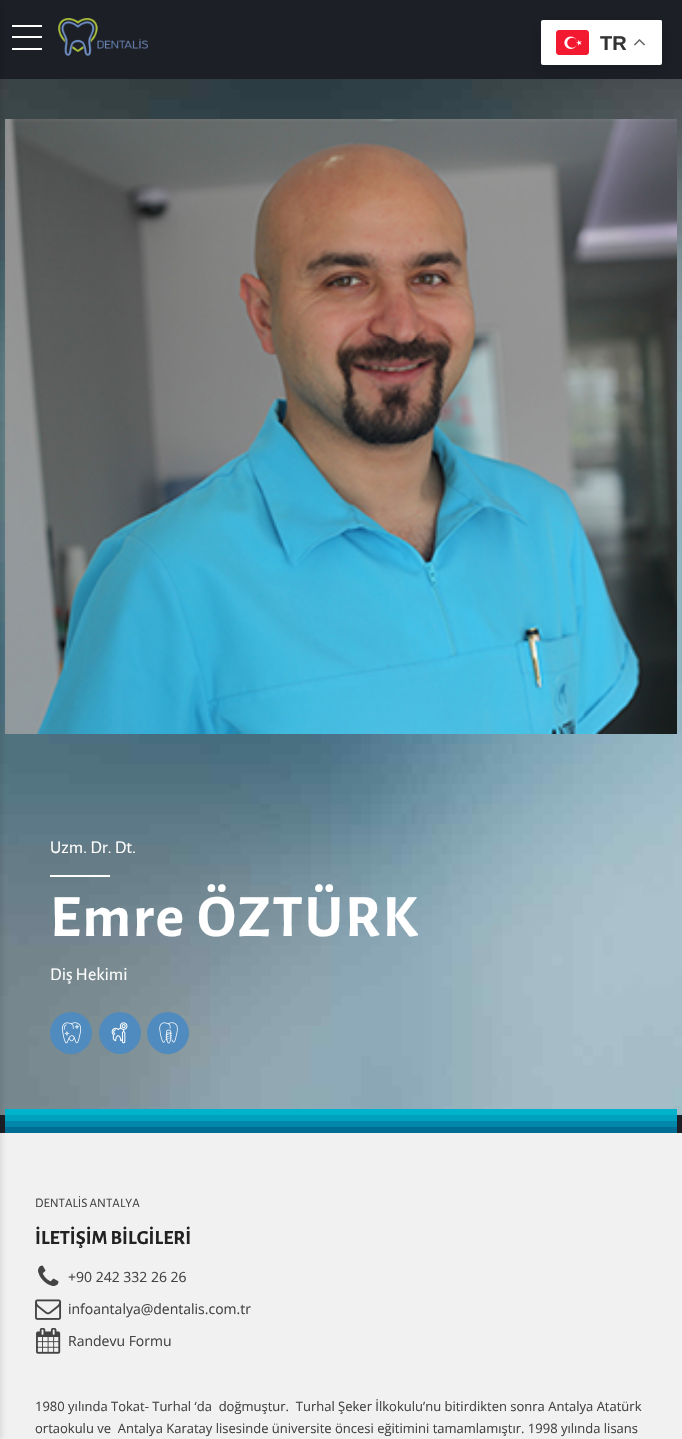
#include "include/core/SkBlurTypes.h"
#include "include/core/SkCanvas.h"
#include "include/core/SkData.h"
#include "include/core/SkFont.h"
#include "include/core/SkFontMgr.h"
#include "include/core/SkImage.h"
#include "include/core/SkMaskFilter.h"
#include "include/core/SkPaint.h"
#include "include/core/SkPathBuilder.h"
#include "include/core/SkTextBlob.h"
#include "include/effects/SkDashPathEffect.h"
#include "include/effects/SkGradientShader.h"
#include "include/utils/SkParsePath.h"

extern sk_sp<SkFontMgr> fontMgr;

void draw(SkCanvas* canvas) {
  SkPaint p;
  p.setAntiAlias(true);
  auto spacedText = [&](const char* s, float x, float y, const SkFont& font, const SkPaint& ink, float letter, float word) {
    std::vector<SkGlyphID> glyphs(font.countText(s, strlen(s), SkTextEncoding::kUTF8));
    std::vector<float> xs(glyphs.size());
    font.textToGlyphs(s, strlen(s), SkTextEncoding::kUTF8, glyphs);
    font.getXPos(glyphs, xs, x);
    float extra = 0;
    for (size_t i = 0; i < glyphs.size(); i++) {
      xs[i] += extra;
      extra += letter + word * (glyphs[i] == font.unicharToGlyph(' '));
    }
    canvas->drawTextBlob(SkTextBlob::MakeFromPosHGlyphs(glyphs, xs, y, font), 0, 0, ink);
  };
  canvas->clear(SkColorSetRGB(29, 31, 39));
  canvas->drawImageRect(SkImages::DeferredFromEncodedData(SkData::MakeFromFileName("images/4.png")), SkRect::MakeLTRB(0, 79, 682, 1115), SkSamplingOptions());
  canvas->drawImageRect(SkImages::DeferredFromEncodedData(SkData::MakeFromFileName("images/5.png")), SkRect::MakeLTRB(5, 119, 677, 734), SkSamplingOptions());
  p.setColor(SkColorSetRGB(0, 179, 204));
  canvas->drawRect(SkRect::MakeLTRB(5, 1109, 677, 1115), p);
  p.setColor(SkColorSetRGB(0, 161, 190));
  canvas->drawRect(SkRect::MakeLTRB(5, 1115, 677, 1121), p);
  p.setColor(SkColorSetRGB(0, 135, 170));
  canvas->drawRect(SkRect::MakeLTRB(5, 1121, 677, 1127), p);
  p.setColor(SkColorSetRGB(0, 109, 149));
  canvas->drawRect(SkRect::MakeLTRB(5, 1127, 677, 1133), p);
  p.setColor(SkColorSetRGB(241, 241, 241));
  canvas->drawRect(SkRect::MakeLTRB(0, 1133, 682, 1439), p);
  p.setColor(SkColorSetARGB(26, 0, 0, 0));
  p.setMaskFilter(SkMaskFilter::MakeBlur(kNormal_SkBlurStyle, 2.5f));
  canvas->drawRect(SkRect::MakeLTRB(-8, 0, 2, 1439), p);
  p.setMaskFilter(nullptr);
  p.setStyle(SkPaint::kStroke_Style);
  p.setStrokeWidth(1);
  p.setColor(SkColorSetRGB(80, 139, 191));
  canvas->drawRect(SkRect::MakeLTRB(626.5f, 20.5f, 661.5f, 55.5f), p);
  p.setStyle(SkPaint::kFill_Style);
  p.setColor(SkColorSetARGB(38, 0, 0, 0));
  p.setMaskFilter(SkMaskFilter::MakeBlur(kNormal_SkBlurStyle, 7.5f));
  canvas->drawRoundRect(SkRect::MakeLTRB(541, 25, 662, 70), 2, 2, p);
  p.setMaskFilter(nullptr);
  p.setColor(SK_ColorWHITE);
  canvas->drawRoundRect(SkRect::MakeLTRB(541, 20, 662, 65), 2, 2, p);
  canvas->drawImageRect(SkImages::DeferredFromEncodedData(SkData::MakeFromFileName("images/1.png")), SkRect::MakeLTRB(556, 30, 589, 55), SkSamplingOptions());
  canvas->drawImageRect(SkImages::DeferredFromEncodedData(SkData::MakeFromFileName("images/2.png")), SkRect::MakeLTRB(634, 39, 645, 46), SkSamplingOptions());
  canvas->drawRect(SkRect::MakeLTRB(12, 25, 42, 27), p);
  canvas->drawRect(SkRect::MakeLTRB(12, 36, 42, 38), p);
  canvas->drawRect(SkRect::MakeLTRB(12, 48, 42, 50), p);
  canvas->drawImageRect(SkImages::DeferredFromEncodedData(SkData::MakeFromFileName("images/3.png")), SkRect::MakeLTRB(58, 18, 148, 56), SkSamplingOptions());
  canvas->drawRect(SkRect::MakeLTRB(50, 875, 110, 877), p);
  p.setColor(SkColorSetRGB(80, 139, 191));
  canvas->drawCircle(71, 1033, 21, p);
  canvas->drawImageRect(SkImages::DeferredFromEncodedData(SkData::MakeFromFileName("images/6.png")), SkRect::MakeLTRB(62, 1022, 81, 1044), SkSamplingOptions());
  canvas->drawCircle(120, 1033, 21, p);
  canvas->drawImageRect(SkImages::DeferredFromEncodedData(SkData::MakeFromFileName("images/7.png")), SkRect::MakeLTRB(111, 1022, 128, 1044), SkSamplingOptions());
  canvas->drawCircle(168, 1033, 21, p);
  canvas->drawImageRect(SkImages::DeferredFromEncodedData(SkData::MakeFromFileName("images/8.png")), SkRect::MakeLTRB(159, 1022, 178, 1044), SkSamplingOptions());
  canvas->drawImageRect(SkImages::DeferredFromEncodedData(SkData::MakeFromFileName("images/9.png")), SkRect::MakeLTRB(38, 1265, 59, 1286), SkSamplingOptions());
  canvas->drawImageRect(SkImages::DeferredFromEncodedData(SkData::MakeFromFileName("images/10.png")), SkRect::MakeLTRB(35, 1299, 62, 1320), SkSamplingOptions());
  canvas->drawImageRect(SkImages::DeferredFromEncodedData(SkData::MakeFromFileName("images/11.png")), SkRect::MakeLTRB(36, 1328, 61, 1354), SkSamplingOptions());
  SkFont font1(fontMgr->matchFamilyStyle("Liberation Sans", SkFontStyle::Bold()), 20);
  font1.setSubpixel(true);
  p.setColor(SkColorSetRGB(51, 51, 51));
  canvas->drawString("TR", 600, 50, font1, p);
  SkFont font2(fontMgr->matchFamilyStyle("Alegreya Sans", SkFontStyle::Normal()), 18);
  font2.setSubpixel(true);
  p.setColor(SK_ColorWHITE);
  canvas->drawString("Uzm. Dr. Dt.", 50, 853, font2, p);
  SkFont font3(fontMgr->matchFamilyStyle("Alegreya Sans", SkFontStyle::Bold()), 60);
  font3.setSubpixel(true);
  spacedText("Emre ÖZTÜRK", 50, 936, font3, p, 2, 0);
  canvas->drawString("Diş Hekimi", 50, 980, font2, p);
  SkFont font4(fontMgr->matchFamilyStyle("Alegreya Sans", SkFontStyle::Normal()), 13);
  font4.setSubpixel(true);
  p.setColor(SkColorSetRGB(68, 68, 68));
  canvas->drawString("DENTALİS ANTALYA", 35, 1207, font4, p);
  SkFont font5(fontMgr->matchFamilyStyle("Alegreya Sans", SkFontStyle::Bold()), 20);
  font5.setSubpixel(true);
  p.setColor(SkColorSetRGB(34, 34, 34));
  canvas->drawString("İLETİŞİM BİLGİLERİ", 35, 1244, font5, p);
  SkFont font6(fontMgr->matchFamilyStyle("Open Sans", SkFontStyle::Normal()), 14);
  font6.setSubpixel(true);
  p.setColor(SkColorSetRGB(68, 68, 68));
  canvas->drawString("+90 242 332 26 26", 68, 1282, font6, p);
  canvas->drawString("infoantalya@dentalis.com.tr", 68, 1314, font6, p);
  canvas->drawString("Randevu Formu", 68, 1346, font6, p);
  SkFont font7(fontMgr->matchFamilyStyle("Open Sans", SkFontStyle::Normal()), 13);
  font7.setSubpixel(true);
  canvas->drawString("1980 yılında Tokat- Turhal ‘da  doğmuştur.  Turhal Şeker İlkokulu’nu bitirdikten sonra Antalya Atatürk", 35, 1411, font7, p);
  canvas->drawString("ortaokulu ve  Antalya Karatay lisesinde üniversite öncesi eğitimini tamamlamıştır. 1998 yılında lisans", 35, 1433, font7, p);
}
